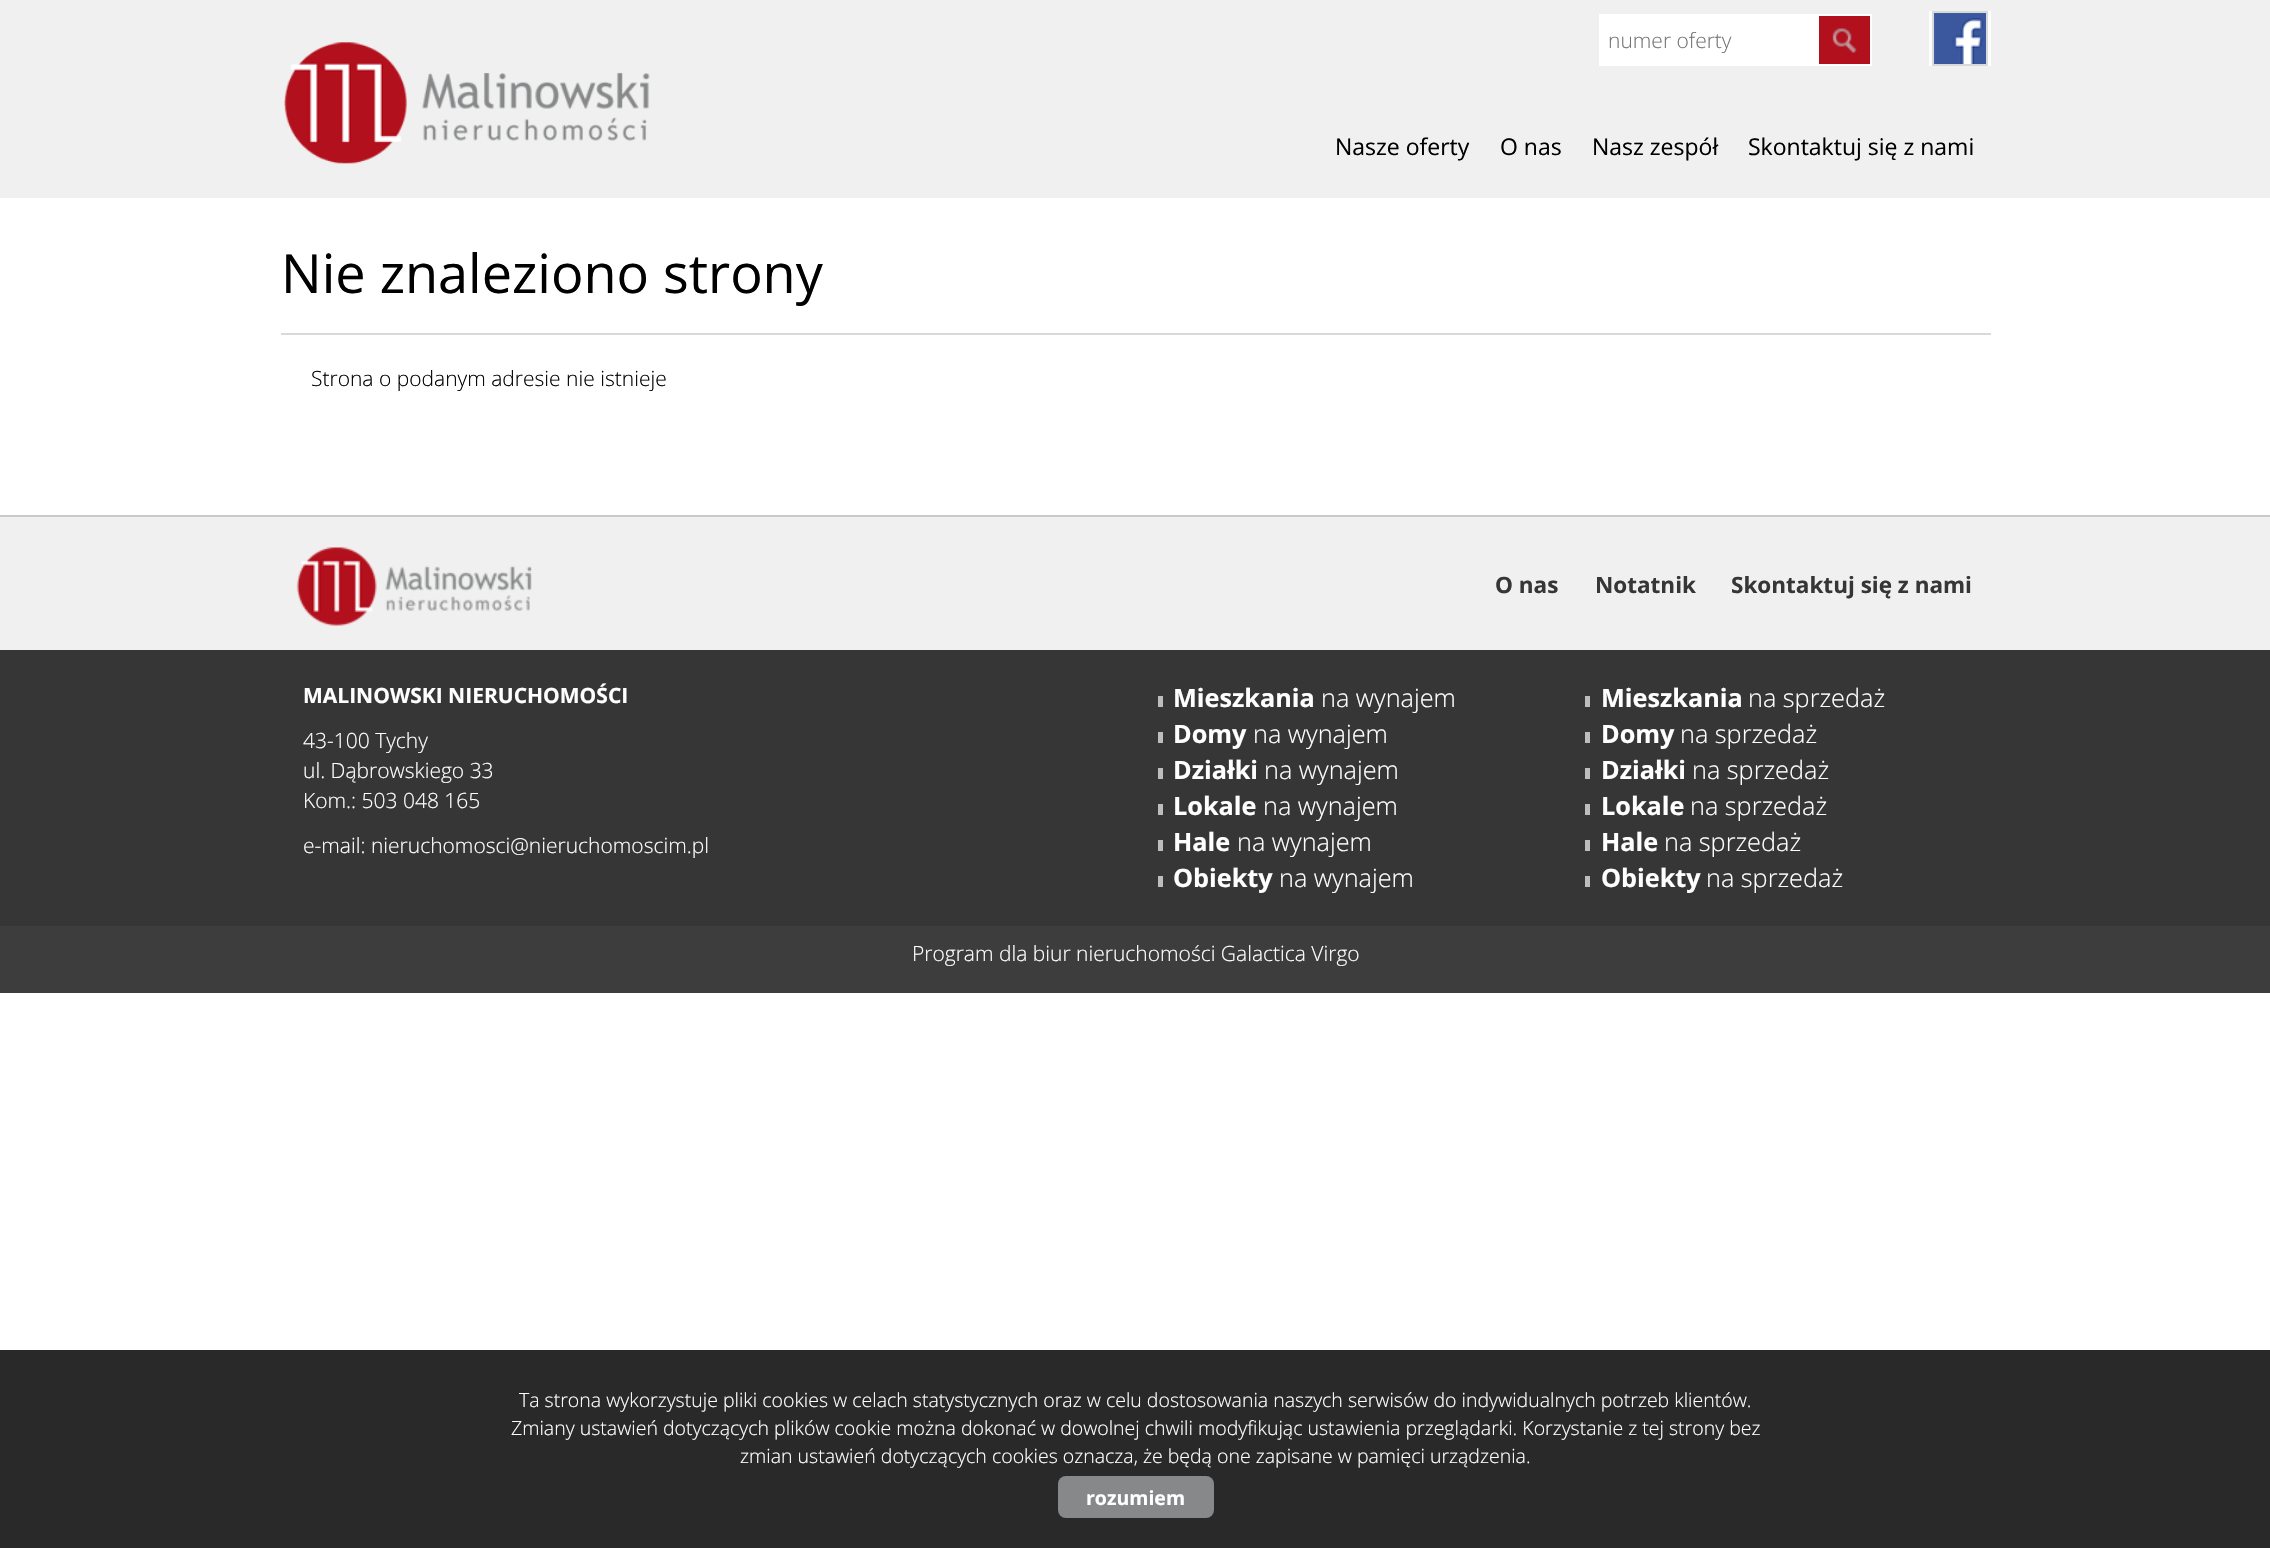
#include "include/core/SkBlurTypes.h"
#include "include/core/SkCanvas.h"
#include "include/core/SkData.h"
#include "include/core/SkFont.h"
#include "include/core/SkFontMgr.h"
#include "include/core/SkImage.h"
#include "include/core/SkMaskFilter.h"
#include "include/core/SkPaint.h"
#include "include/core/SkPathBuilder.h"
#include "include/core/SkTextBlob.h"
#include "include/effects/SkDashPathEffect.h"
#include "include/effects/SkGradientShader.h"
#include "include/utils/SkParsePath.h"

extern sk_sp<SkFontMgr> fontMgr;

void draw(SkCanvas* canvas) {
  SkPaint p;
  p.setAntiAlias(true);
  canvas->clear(SK_ColorWHITE);
  p.setColor(SkColorSetRGB(240, 240, 240));
  canvas->drawRect(SkRect::MakeLTRB(0, 0, 2270, 198), p);
  canvas->drawImageRect(SkImages::DeferredFromEncodedData(SkData::MakeFromFileName("images/1.png")), SkRect::MakeLTRB(284, 42, 650, 164), SkSamplingOptions());
  p.setColor(SK_ColorWHITE);
  canvas->drawRect(SkRect::MakeLTRB(1599, 14, 1817, 66), p);
  p.setColor(SkColorSetRGB(178, 16, 29));
  canvas->drawRect(SkRect::MakeLTRB(1819, 16, 1870, 64), p);
  canvas->drawImageRect(SkImages::DeferredFromEncodedData(SkData::MakeFromFileName("images/2.png")), SkRect::MakeLTRB(1832, 28, 1857, 53), SkSamplingOptions());
  p.setStyle(SkPaint::kStroke_Style);
  p.setStrokeWidth(2);
  p.setColor(SK_ColorWHITE);
  canvas->drawRect(SkRect::MakeLTRB(1818, 15, 1871, 65), p);
  p.setStyle(SkPaint::kFill_Style);
  p.setColor(SkColorSetRGB(253, 253, 253));
  canvas->drawRect(SkRect::MakeLTRB(1929, 11, 1991, 66), p);
  canvas->drawImageRect(SkImages::DeferredFromEncodedData(SkData::MakeFromFileName("images/3.png")), SkRect::MakeLTRB(1934, 13, 1986, 64), SkSamplingOptions());
  p.setStyle(SkPaint::kStroke_Style);
  p.setColor(SkColorSetRGB(217, 217, 217));
  canvas->drawRect(SkRect::MakeLTRB(1933, 12, 1987, 65), p);
  p.setStyle(SkPaint::kFill_Style);
  canvas->drawRect(SkRect::MakeLTRB(281, 333, 1991, 335), p);
  p.setColor(SkColorSetRGB(240, 240, 240));
  canvas->drawRect(SkRect::MakeLTRB(0, 517, 2270, 650), p);
  p.setColor(SkColorSetRGB(201, 201, 201));
  canvas->drawRect(SkRect::MakeLTRB(0, 515, 2270, 517), p);
  canvas->drawImageRect(SkImages::DeferredFromEncodedData(SkData::MakeFromFileName("images/4.png")), SkRect::MakeLTRB(296, 547, 532, 626), SkSamplingOptions());
  p.setColor(SkColorSetRGB(54, 54, 54));
  canvas->drawRect(SkRect::MakeLTRB(0, 650, 2270, 926), p);
  p.setColor(SkColorSetRGB(189, 189, 189));
  canvas->drawRect(SkRect::MakeLTRB(1158, 696, 1163, 707), p);
  canvas->drawRect(SkRect::MakeLTRB(1158, 732, 1163, 743), p);
  canvas->drawRect(SkRect::MakeLTRB(1158, 768, 1163, 779), p);
  canvas->drawRect(SkRect::MakeLTRB(1158, 804, 1163, 815), p);
  canvas->drawRect(SkRect::MakeLTRB(1158, 840, 1163, 851), p);
  canvas->drawRect(SkRect::MakeLTRB(1158, 876, 1163, 887), p);
  canvas->drawRect(SkRect::MakeLTRB(1585, 696, 1590, 707), p);
  canvas->drawRect(SkRect::MakeLTRB(1585, 732, 1590, 743), p);
  canvas->drawRect(SkRect::MakeLTRB(1585, 768, 1590, 779), p);
  canvas->drawRect(SkRect::MakeLTRB(1585, 804, 1590, 815), p);
  canvas->drawRect(SkRect::MakeLTRB(1585, 840, 1590, 851), p);
  canvas->drawRect(SkRect::MakeLTRB(1585, 876, 1590, 887), p);
  p.setColor(SkColorSetRGB(61, 61, 61));
  canvas->drawRect(SkRect::MakeLTRB(0, 926, 2270, 993), p);
  p.setColor(SkColorSetRGB(41, 41, 41));
  canvas->drawRect(SkRect::MakeLTRB(0, 1350, 2270, 1548), p);
  p.setColor(SkColorSetRGB(134, 136, 137));
  canvas->drawRoundRect(SkRect::MakeLTRB(1058, 1476, 1214, 1518), 8, 8, p);
  SkFont font1(fontMgr->matchFamilyStyle("Open Sans", SkFontStyle(300, SkFontStyle::kNormal_Width, SkFontStyle::kUpright_Slant)), 21);
  font1.setSubpixel(true);
  p.setColor(SkColorSetRGB(117, 117, 117));
  canvas->drawString("numer oferty", 1608, 48, font1, p);
  SkFont font2(fontMgr->matchFamilyStyle("Open Sans", SkFontStyle::Normal()), 23);
  font2.setSubpixel(true);
  p.setColor(SK_ColorBLACK);
  canvas->drawString("Nasze oferty", 1335, 155, font2, p);
  canvas->drawString("O nas", 1500, 155, font2, p);
  canvas->drawString("Nasz zespół", 1592, 155, font2, p);
  canvas->drawString("Skontaktuj się z nami", 1748, 155, font2, p);
  SkFont font3(fontMgr->matchFamilyStyle("Open Sans", SkFontStyle::Normal()), 54);
  font3.setSubpixel(true);
  canvas->drawString("Nie znaleziono strony", 281, 293, font3, p);
  canvas->drawString("Strona o podanym adresie nie istnieje", 311, 386, font1, p);
  SkFont font4(fontMgr->matchFamilyStyle("Open Sans", SkFontStyle::Bold()), 22.5f);
  font4.setSubpixel(true);
  p.setColor(SkColorSetRGB(54, 54, 54));
  canvas->drawString("O nas", 1495, 593, font4, p);
  canvas->drawString("Notatnik", 1595, 593, font4, p);
  canvas->drawString("Skontaktuj się z nami", 1731, 593, font4, p);
  SkFont font5(fontMgr->matchFamilyStyle("Open Sans", SkFontStyle::Bold()), 21);
  font5.setSubpixel(true);
  p.setColor(SK_ColorWHITE);
  canvas->drawString("MALINOWSKI NIERUCHOMOŚCI", 303, 703, font5, p);
  canvas->drawString("43-100 Tychy", 303, 748, font1, p);
  canvas->drawString("ul. Dąbrowskiego 33", 303, 778, font1, p);
  canvas->drawString("Kom.: 503 048 165", 303, 808, font1, p);
  canvas->drawString("e-mail: nieruchomosci@nieruchomoscim.pl", 303, 853, font1, p);
  SkFont font6(fontMgr->matchFamilyStyle("Open Sans", SkFontStyle::Bold()), 25.25f);
  font6.setSubpixel(true);
  canvas->drawString("Mieszkania", 1173, 707, font6, p);
  SkFont font7(fontMgr->matchFamilyStyle("Open Sans", SkFontStyle(300, SkFontStyle::kNormal_Width, SkFontStyle::kUpright_Slant)), 25.25f);
  font7.setSubpixel(true);
  canvas->drawString("na wynajem", 1321, 707, font7, p);
  canvas->drawString("Domy", 1173, 743, font6, p);
  canvas->drawString("na wynajem", 1253, 743, font7, p);
  canvas->drawString("Działki", 1173, 779, font6, p);
  canvas->drawString("na wynajem", 1264, 779, font7, p);
  canvas->drawString("Lokale", 1173, 815, font6, p);
  canvas->drawString("na wynajem", 1263, 815, font7, p);
  canvas->drawString("Hale", 1173, 851, font6, p);
  canvas->drawString("na wynajem", 1237, 851, font7, p);
  canvas->drawString("Obiekty", 1173, 887, font6, p);
  canvas->drawString("na wynajem", 1279, 887, font7, p);
  canvas->drawString("Mieszkania", 1601, 707, font6, p);
  canvas->drawString("na sprzedaż", 1748, 707, font7, p);
  canvas->drawString("Domy", 1601, 743, font6, p);
  canvas->drawString("na sprzedaż", 1680, 743, font7, p);
  canvas->drawString("Działki", 1601, 779, font6, p);
  canvas->drawString("na sprzedaż", 1692, 779, font7, p);
  canvas->drawString("Lokale", 1601, 815, font6, p);
  canvas->drawString("na sprzedaż", 1690, 815, font7, p);
  canvas->drawString("Hale", 1601, 851, font6, p);
  canvas->drawString("na sprzedaż", 1664, 851, font7, p);
  canvas->drawString("Obiekty", 1601, 887, font6, p);
  canvas->drawString("na sprzedaż", 1706, 887, font7, p);
  canvas->drawString("Program dla biur nieruchomości Galactica Virgo", 912, 961, font1, p);
  SkFont font8(fontMgr->matchFamilyStyle("Open Sans", SkFontStyle(300, SkFontStyle::kNormal_Width, SkFontStyle::kUpright_Slant)), 19.5f);
  font8.setSubpixel(true);
  canvas->drawString("Ta strona wykorzystuje pliki cookies w celach statystycznych oraz w celu dostosowania naszych serwisów do indywidualnych potrzeb klientów.", 519, 1407, font8, p);
  canvas->drawString("Zmiany ustawień dotyczących plików cookie można dokonać w dowolnej chwili modyfikując ustawienia przeglądarki. Korzystanie z tej strony bez", 511, 1435, font8, p);
  canvas->drawString("zmian ustawień dotyczących cookies oznacza, że będą one zapisane w pamięci urządzenia.", 740, 1463, font8, p);
  SkFont font9(fontMgr->matchFamilyStyle("Open Sans", SkFontStyle::Bold()), 19.5f);
  font9.setSubpixel(true);
  canvas->drawString("rozumiem", 1086, 1505, font9, p);
}
